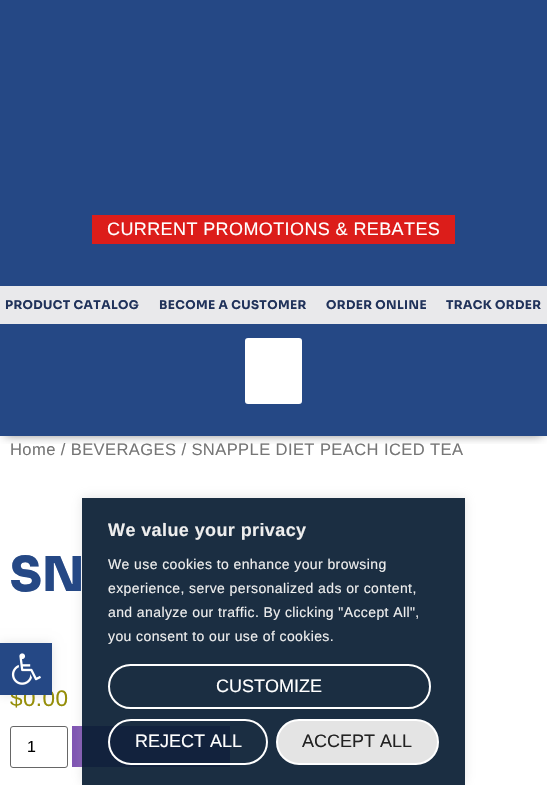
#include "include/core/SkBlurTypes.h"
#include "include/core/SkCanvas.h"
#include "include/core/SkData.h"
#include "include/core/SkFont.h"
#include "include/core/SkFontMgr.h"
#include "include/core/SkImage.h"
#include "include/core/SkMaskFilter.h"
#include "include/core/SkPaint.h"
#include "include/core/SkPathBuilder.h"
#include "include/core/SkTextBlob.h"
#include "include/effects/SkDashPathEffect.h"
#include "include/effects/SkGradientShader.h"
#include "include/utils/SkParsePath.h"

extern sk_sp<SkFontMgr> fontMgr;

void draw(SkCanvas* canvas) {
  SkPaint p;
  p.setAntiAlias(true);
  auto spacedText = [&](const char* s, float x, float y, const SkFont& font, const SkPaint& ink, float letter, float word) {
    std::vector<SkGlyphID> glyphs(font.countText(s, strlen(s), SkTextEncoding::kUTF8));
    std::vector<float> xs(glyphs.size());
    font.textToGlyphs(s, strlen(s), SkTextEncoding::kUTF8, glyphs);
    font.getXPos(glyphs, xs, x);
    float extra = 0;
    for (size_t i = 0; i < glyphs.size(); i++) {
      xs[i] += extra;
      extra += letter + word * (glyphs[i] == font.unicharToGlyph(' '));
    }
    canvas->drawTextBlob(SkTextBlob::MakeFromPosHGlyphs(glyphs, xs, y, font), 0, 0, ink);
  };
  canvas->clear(SK_ColorWHITE);
  p.setColor(SkColorSetRGB(37, 72, 133));
  canvas->drawRect(SkRect::MakeLTRB(0, 0, 547, 436), p);
  canvas->save();
  canvas->clipRect(SkRect::MakeLTRB(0, 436, 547, 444));
  p.setColor(SkColorSetARGB(128, 0, 0, 0));
  p.setMaskFilter(SkMaskFilter::MakeBlur(kNormal_SkBlurStyle, 5));
  canvas->drawRect(SkRect::MakeLTRB(5, 9, 542, 435), p);
  p.setMaskFilter(nullptr);
  canvas->restore();
  p.setColor(SkColorSetRGB(220, 29, 26));
  canvas->drawRect(SkRect::MakeLTRB(92, 215, 455, 244), p);
  p.setColor(SkColorSetRGB(233, 233, 235));
  canvas->drawRect(SkRect::MakeLTRB(0, 286, 547, 324), p);
  p.setColor(SK_ColorWHITE);
  canvas->drawRoundRect(SkRect::MakeLTRB(245, 338, 302, 404), 3, 3, p);
  p.setStyle(SkPaint::kStroke_Style);
  p.setStrokeWidth(1);
  p.setColor(SkColorSetRGB(102, 102, 102));
  canvas->drawRoundRect(SkRect::MakeLTRB(10.5f, 726.5f, 67.5f, 767.5f), 2.5f, 2.5f, p);
  p.setStyle(SkPaint::kFill_Style);
  p.setColor(SkColorSetRGB(127, 84, 179));
  canvas->drawRect(SkRect::MakeLTRB(72, 726, 230, 767), p);
  p.setColor(SkColorSetARGB(26, 0, 0, 0));
  p.setMaskFilter(SkMaskFilter::MakeBlur(kNormal_SkBlurStyle, 5));
  canvas->drawRect(SkRect::MakeLTRB(0, 643, 52, 695), p);
  p.setMaskFilter(nullptr);
  canvas->save();
  canvas->clipPath(SkPathBuilder(SkPathFillType::kEvenOdd).moveTo(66, 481).lineTo(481, 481).lineTo(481, 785).lineTo(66, 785).close().moveTo(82, 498).lineTo(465, 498).lineTo(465, 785).lineTo(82, 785).close().detach(), true);
  p.setColor(SkColorSetARGB(77, 172, 171, 171));
  p.setMaskFilter(SkMaskFilter::MakeBlur(kNormal_SkBlurStyle, 5));
  canvas->drawRect(SkRect::MakeLTRB(82, 497, 465, 784), p);
  p.setMaskFilter(nullptr);
  canvas->restore();
  p.setColor(SkColorSetARGB(237, 10, 30, 52));
  canvas->drawRect(SkRect::MakeLTRB(82, 498, 465, 785), p);
  p.setStyle(SkPaint::kStroke_Style);
  p.setStrokeWidth(2);
  p.setColor(SK_ColorWHITE);
  canvas->drawRoundRect(SkRect::MakeLTRB(109, 665, 430, 708), 21.5f, 21.5f, p);
  canvas->drawRoundRect(SkRect::MakeLTRB(109, 720, 267, 764), 22, 22, p);
  p.setStyle(SkPaint::kFill_Style);
  p.setColor(SkColorSetRGB(228, 228, 228));
  canvas->drawRoundRect(SkRect::MakeLTRB(277, 720, 438, 764), 22, 22, p);
  p.setStyle(SkPaint::kStroke_Style);
  p.setColor(SK_ColorWHITE);
  canvas->drawRoundRect(SkRect::MakeLTRB(277, 720, 438, 764), 22, 22, p);
  SkFont font1(fontMgr->matchFamilyStyle("Liberation Sans", SkFontStyle::Normal()), 18);
  font1.setSubpixel(true);
  p.setStyle(SkPaint::kFill_Style);
  spacedText("CURRENT PROMOTIONS & REBATES", 107, 235, font1, p, 0.4f, 0);
  SkFont font2(fontMgr->matchFamilyStyle("Sora", SkFontStyle::Bold()), 12);
  font2.setSubpixel(true);
  p.setColor(SkColorSetRGB(32, 50, 90));
  spacedText("PRODUCT CATALOG", 5, 309, font2, p, 0.4f, 0);
  spacedText("BECOME A CUSTOMER", 159, 309, font2, p, 0.4f, 0);
  spacedText("ORDER ONLINE", 326, 309, font2, p, 0.4f, 0);
  spacedText("TRACK ORDER", 446, 309, font2, p, 0.4f, 0);
  SkFont font3(fontMgr->matchFamilyStyle("Liberation Sans", SkFontStyle::Normal()), 16.55f);
  font3.setSubpixel(true);
  p.setColor(SkColorSetRGB(118, 118, 118));
  spacedText("Home / BEVERAGES / SNAPPLE DIET PEACH ICED TEA", 10, 455, font3, p, 0.4f, 0);
  SkFont font4(fontMgr->matchFamilyStyle("Sora", SkFontStyle(800, SkFontStyle::kNormal_Width, SkFontStyle::kUpright_Slant)), 48);
  font4.setSubpixel(true);
  p.setColor(SkColorSetRGB(37, 72, 133));
  spacedText("SN", 10, 591, font4, p, 0.4f, 0);
  SkFont font5(fontMgr->matchFamilyStyle("Liberation Sans", SkFontStyle::Normal()), 22.5f);
  font5.setSubpixel(true);
  p.setColor(SkColorSetRGB(149, 142, 9));
  spacedText("$0.00", 10, 706, font5, p, 0.4f, 0);
  SkFont font6(fontMgr->matchFamilyStyle("Liberation Sans", SkFontStyle::Normal()), 16);
  font6.setSubpixel(true);
  p.setColor(SK_ColorBLACK);
  canvas->drawString("1", 27, 752, font6, p);
  p.setColor(SkColorSetRGB(37, 72, 133));
  canvas->drawRect(SkRect::MakeLTRB(0, 643, 52, 695), p);
  canvas->drawImageRect(SkImages::DeferredFromEncodedData(SkData::MakeFromFileName("images/1.png")), SkRect::MakeLTRB(11, 653, 41, 685), SkSamplingOptions());
  SkFont font7(fontMgr->matchFamilyStyle("Liberation Sans", SkFontStyle::Bold()), 18);
  font7.setSubpixel(true);
  p.setColor(SkColorSetRGB(238, 238, 238));
  spacedText("We value your privacy", 108, 536, font7, p, 0.4f, 0);
  SkFont font8(fontMgr->matchFamilyStyle("Liberation Sans", SkFontStyle::Normal()), 14);
  font8.setSubpixel(true);
  spacedText("We use cookies to enhance your browsing", 108, 569, font8, p, 0.4f, 0);
  spacedText("experience, serve personalized ads or content,", 108, 593, font8, p, 0.4f, 0);
  spacedText("and analyze our traffic. By clicking \"Accept All\",", 108, 617, font8, p, 0.4f, 0);
  spacedText("you consent to our use of cookies.", 108, 641, font8, p, 0.4f, 0);
  p.setColor(SK_ColorWHITE);
  canvas->drawString("CUSTOMIZE", 216, 692, font1, p);
  canvas->drawString("REJECT ALL", 135, 747, font1, p);
  p.setColor(SkColorSetRGB(34, 34, 34));
  canvas->drawString("ACCEPT ALL", 302, 747, font1, p);
}
